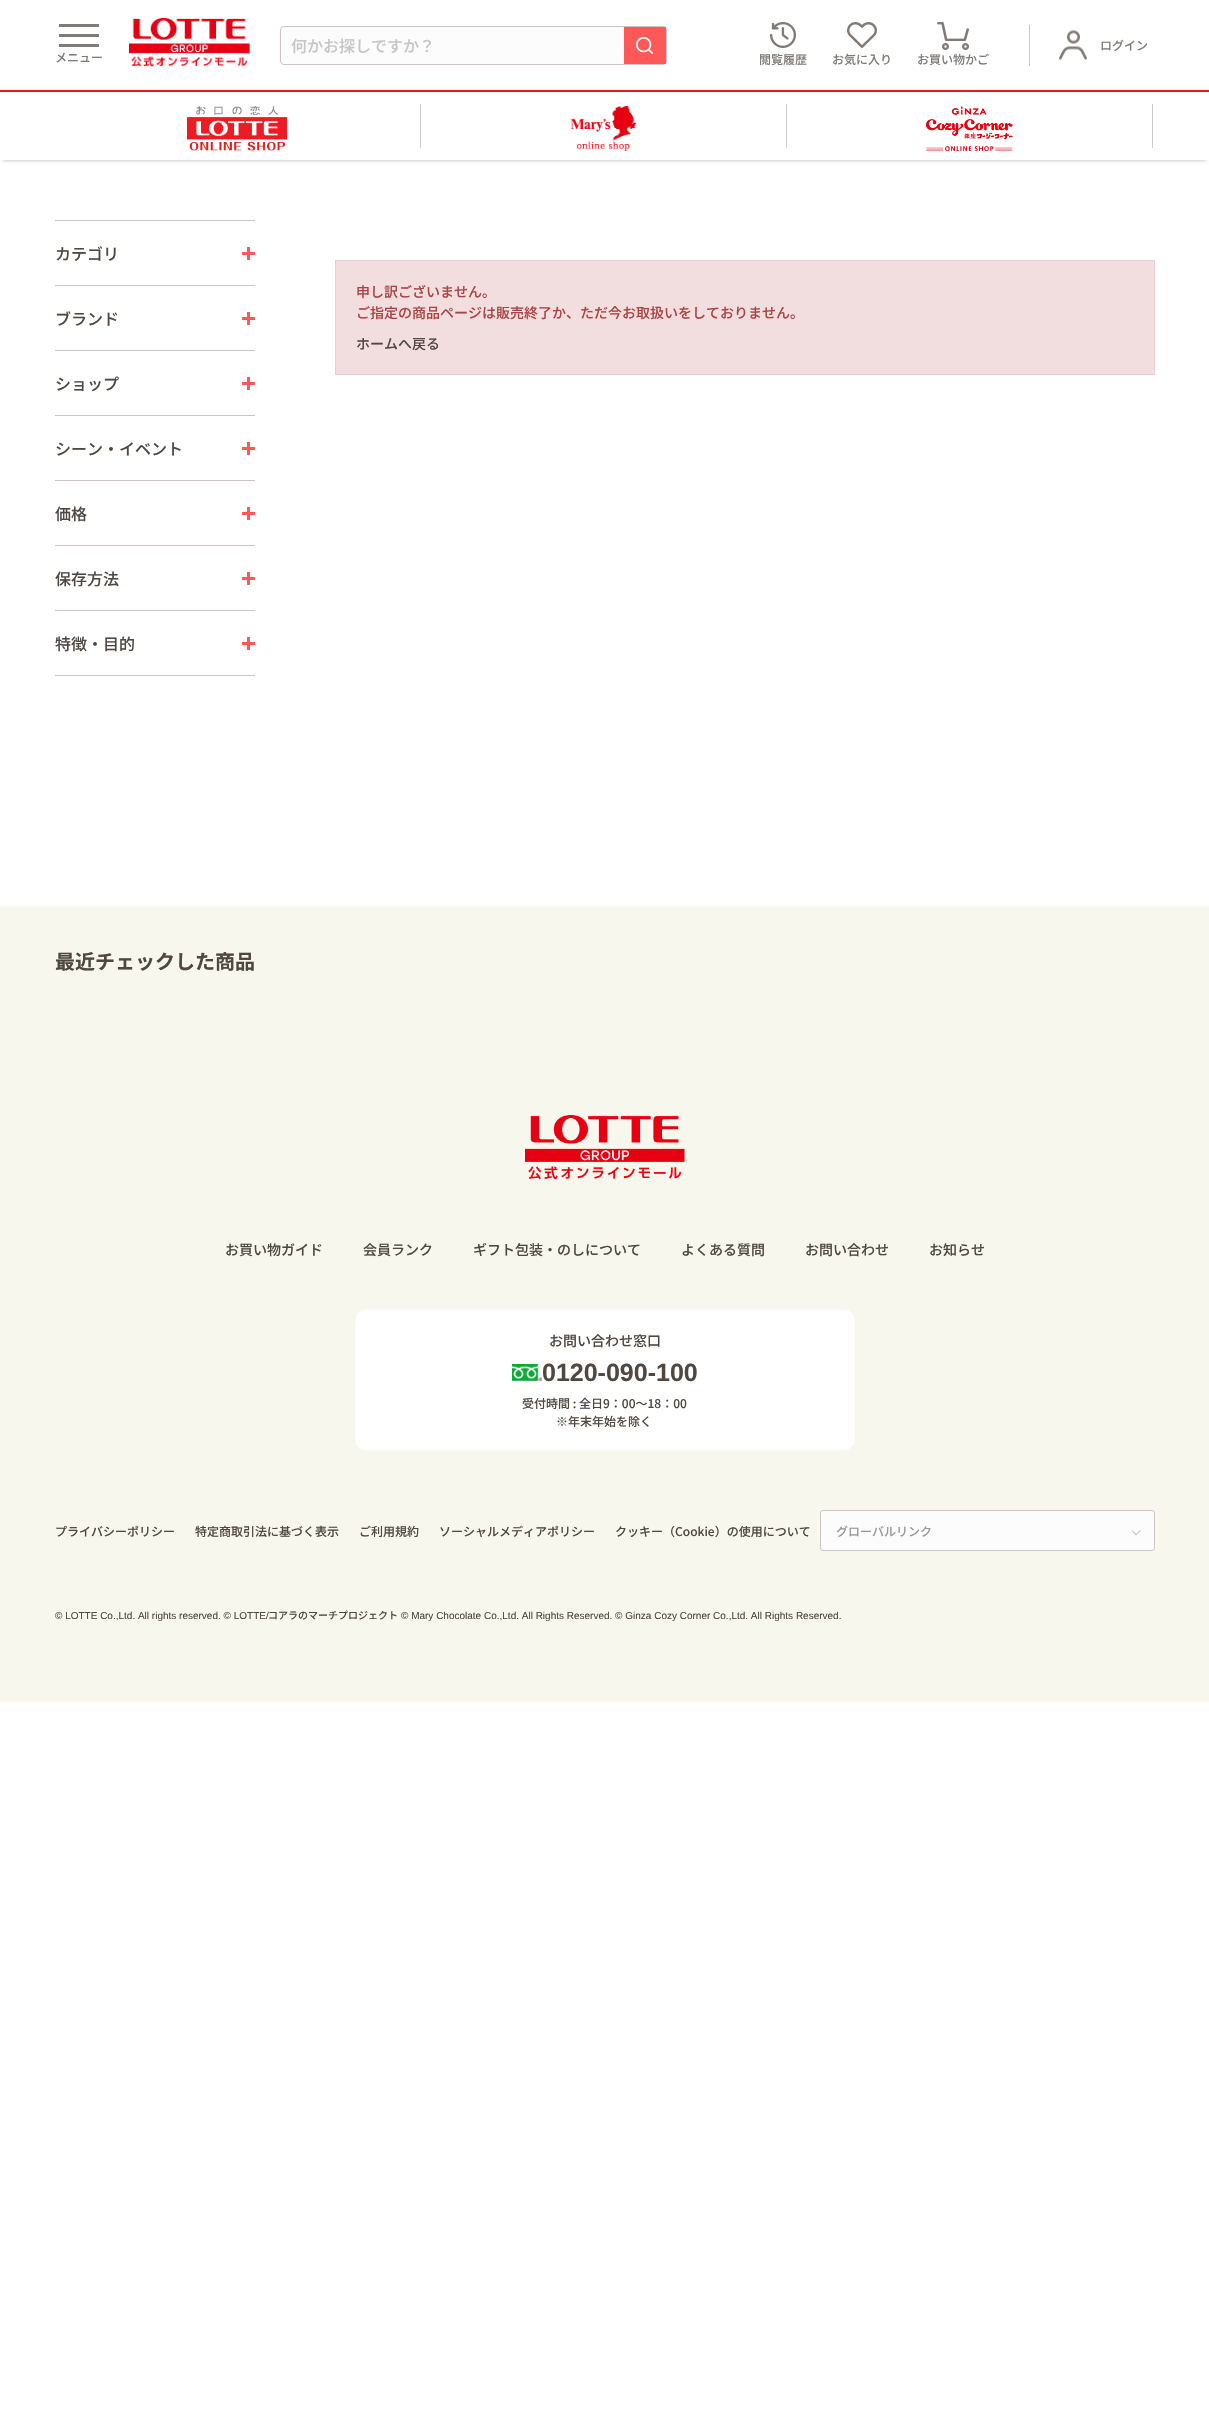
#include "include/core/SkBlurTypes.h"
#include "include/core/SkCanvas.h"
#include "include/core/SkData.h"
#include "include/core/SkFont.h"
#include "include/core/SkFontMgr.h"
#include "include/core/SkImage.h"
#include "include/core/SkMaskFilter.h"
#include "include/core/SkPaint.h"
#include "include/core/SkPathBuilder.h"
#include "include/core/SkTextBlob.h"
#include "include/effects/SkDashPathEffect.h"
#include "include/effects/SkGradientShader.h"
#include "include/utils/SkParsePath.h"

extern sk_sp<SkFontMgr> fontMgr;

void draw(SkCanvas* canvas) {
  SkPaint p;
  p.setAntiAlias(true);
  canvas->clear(SK_ColorWHITE);
  p.setColor(SkColorSetRGB(128, 123, 119));
  canvas->drawRect(SkRect::MakeLTRB(59, 34, 99, 37), p);
  canvas->drawRect(SkRect::MakeLTRB(59, 24, 99, 27), p);
  canvas->drawRect(SkRect::MakeLTRB(59, 44, 99, 47), p);
  canvas->drawImageRect(SkImages::DeferredFromEncodedData(SkData::MakeFromFileName("images/1.png")), SkRect::MakeLTRB(129, 18, 250, 67), SkSamplingOptions());
  p.setColor(SkColorSetRGB(252, 252, 252));
  canvas->drawRoundRect(SkRect::MakeLTRB(280.5f, 26.5f, 666.5f, 64.5f), 3.5f, 3.5f, p);
  p.setStyle(SkPaint::kStroke_Style);
  p.setStrokeWidth(1);
  p.setColor(SkColorSetRGB(206, 195, 195));
  canvas->drawRoundRect(SkRect::MakeLTRB(280.5f, 26.5f, 666.5f, 64.5f), 3.5f, 3.5f, p);
  p.setStyle(SkPaint::kFill_Style);
  p.setColor(SkColorSetRGB(255, 88, 88));
  canvas->drawRect(SkRect::MakeLTRB(624, 27, 666, 64), p);
  canvas->drawImageRect(SkImages::DeferredFromEncodedData(SkData::MakeFromFileName("images/2.png")), SkRect::MakeLTRB(636, 37, 653, 54), SkSamplingOptions());
  p.setColor(SkColorSetRGB(206, 195, 195));
  canvas->drawRect(SkRect::MakeLTRB(1029, 25, 1030, 66), p);
  canvas->drawImageRect(SkImages::DeferredFromEncodedData(SkData::MakeFromFileName("images/3.png")), SkRect::MakeLTRB(1059, 30, 1087, 60), SkSamplingOptions());
  canvas->drawImageRect(SkImages::DeferredFromEncodedData(SkData::MakeFromFileName("images/4.png")), SkRect::MakeLTRB(770, 22, 796, 48), SkSamplingOptions());
  canvas->drawImageRect(SkImages::DeferredFromEncodedData(SkData::MakeFromFileName("images/5.png")), SkRect::MakeLTRB(847, 22, 877, 48), SkSamplingOptions());
  canvas->drawImageRect(SkImages::DeferredFromEncodedData(SkData::MakeFromFileName("images/6.png")), SkRect::MakeLTRB(937, 22, 969, 50), SkSamplingOptions());
  canvas->save();
  canvas->clipRect(SkRect::MakeLTRB(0, 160, 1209, 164));
  p.setColor(SkColorSetRGB(204, 204, 204));
  p.setMaskFilter(SkMaskFilter::MakeBlur(kNormal_SkBlurStyle, 1.5f));
  canvas->drawRect(SkRect::MakeLTRB(3, 97, 1206, 161), p);
  p.setMaskFilter(nullptr);
  canvas->restore();
  p.setColor(SkColorSetRGB(221, 29, 24));
  canvas->drawRect(SkRect::MakeLTRB(0, 90, 1209, 92), p);
  p.setColor(SkColorSetRGB(204, 204, 204));
  canvas->drawRect(SkRect::MakeLTRB(420, 104, 421, 148), p);
  canvas->drawImageRect(SkImages::DeferredFromEncodedData(SkData::MakeFromFileName("images/7.png")), SkRect::MakeLTRB(187, 106, 287, 151), SkSamplingOptions());
  canvas->drawRect(SkRect::MakeLTRB(786, 104, 787, 148), p);
  canvas->drawImageRect(SkImages::DeferredFromEncodedData(SkData::MakeFromFileName("images/8.png")), SkRect::MakeLTRB(570, 106, 637, 151), SkSamplingOptions());
  canvas->drawRect(SkRect::MakeLTRB(1152, 104, 1153, 148), p);
  canvas->drawImageRect(SkImages::DeferredFromEncodedData(SkData::MakeFromFileName("images/9.png")), SkRect::MakeLTRB(926, 106, 1013, 151), SkSamplingOptions());
  p.setColor(SkColorSetRGB(206, 195, 195));
  canvas->drawRect(SkRect::MakeLTRB(55, 220, 255, 221), p);
  canvas->drawRect(SkRect::MakeLTRB(55, 285, 255, 286), p);
  p.setColor(SkColorSetRGB(255, 88, 88));
  canvas->drawRect(SkRect::MakeLTRB(242, 252, 255, 255), p);
  canvas->drawRect(SkRect::MakeLTRB(247, 247, 250, 260), p);
  p.setColor(SkColorSetRGB(206, 195, 195));
  canvas->drawRect(SkRect::MakeLTRB(55, 350, 255, 351), p);
  p.setColor(SkColorSetRGB(255, 88, 88));
  canvas->drawRect(SkRect::MakeLTRB(242, 317, 255, 320), p);
  canvas->drawRect(SkRect::MakeLTRB(247, 312, 250, 325), p);
  p.setColor(SkColorSetRGB(206, 195, 195));
  canvas->drawRect(SkRect::MakeLTRB(55, 415, 255, 416), p);
  p.setColor(SkColorSetRGB(255, 88, 88));
  canvas->drawRect(SkRect::MakeLTRB(242, 382, 255, 385), p);
  canvas->drawRect(SkRect::MakeLTRB(247, 377, 250, 390), p);
  p.setColor(SkColorSetRGB(206, 195, 195));
  canvas->drawRect(SkRect::MakeLTRB(55, 480, 255, 481), p);
  p.setColor(SkColorSetRGB(255, 88, 88));
  canvas->drawRect(SkRect::MakeLTRB(242, 447, 255, 450), p);
  canvas->drawRect(SkRect::MakeLTRB(247, 442, 250, 455), p);
  p.setColor(SkColorSetRGB(206, 195, 195));
  canvas->drawRect(SkRect::MakeLTRB(55, 545, 255, 546), p);
  p.setColor(SkColorSetRGB(255, 88, 88));
  canvas->drawRect(SkRect::MakeLTRB(242, 512, 255, 515), p);
  canvas->drawRect(SkRect::MakeLTRB(247, 507, 250, 520), p);
  p.setColor(SkColorSetRGB(206, 195, 195));
  canvas->drawRect(SkRect::MakeLTRB(55, 610, 255, 611), p);
  p.setColor(SkColorSetRGB(255, 88, 88));
  canvas->drawRect(SkRect::MakeLTRB(242, 577, 255, 580), p);
  canvas->drawRect(SkRect::MakeLTRB(247, 572, 250, 585), p);
  p.setColor(SkColorSetRGB(206, 195, 195));
  canvas->drawRect(SkRect::MakeLTRB(55, 675, 255, 676), p);
  p.setColor(SkColorSetRGB(255, 88, 88));
  canvas->drawRect(SkRect::MakeLTRB(242, 642, 255, 645), p);
  canvas->drawRect(SkRect::MakeLTRB(247, 637, 250, 650), p);
  p.setColor(SkColorSetRGB(242, 222, 222));
  canvas->drawRect(SkRect::MakeLTRB(335.5f, 260.5f, 1154.5f, 374.5f), p);
  p.setStyle(SkPaint::kStroke_Style);
  p.setColor(SkColorSetRGB(235, 204, 209));
  canvas->drawRect(SkRect::MakeLTRB(335.5f, 260.5f, 1154.5f, 374.5f), p);
  p.setStyle(SkPaint::kFill_Style);
  p.setColor(SkColorSetRGB(247, 247, 237));
  canvas->drawRect(SkRect::MakeLTRB(0, 906, 1209, 1702), p);
  canvas->drawImageRect(SkImages::DeferredFromEncodedData(SkData::MakeFromFileName("images/10.png")), SkRect::MakeLTRB(525, 1115, 685, 1180), SkSamplingOptions());
  p.setColor(SK_ColorWHITE);
  canvas->drawRoundRect(SkRect::MakeLTRB(355, 1310, 855, 1450), 10, 10, p);
  canvas->drawImageRect(SkImages::DeferredFromEncodedData(SkData::MakeFromFileName("images/11.png")), SkRect::MakeLTRB(512, 1364, 542, 1381), SkSamplingOptions());
  p.setColor(SkColorSetRGB(252, 252, 252));
  canvas->drawRoundRect(SkRect::MakeLTRB(820.5f, 1510.5f, 1154.5f, 1550.5f), 2.5f, 2.5f, p);
  p.setStyle(SkPaint::kStroke_Style);
  p.setColor(SkColorSetRGB(206, 195, 195));
  canvas->drawRoundRect(SkRect::MakeLTRB(820.5f, 1510.5f, 1154.5f, 1550.5f), 2.5f, 2.5f, p);
  p.setStyle(SkPaint::kFill_Style);
  canvas->drawPath(SkPathBuilder().moveTo(1140, 1530).lineTo(1141, 1530.5f).lineTo(1136, 1535.5f).lineTo(1135.5f, 1534.5f).close().detach(), p);
  canvas->drawPath(SkPathBuilder().moveTo(1132, 1530).lineTo(1137, 1534.5f).lineTo(1136, 1535.5f).lineTo(1131.5f, 1530.5f).close().detach(), p);
  SkFont font1(fontMgr->matchFamilyStyle("Noto Sans JP", SkFontStyle(500, SkFontStyle::kNormal_Width, SkFontStyle::kUpright_Slant)), 12);
  font1.setSubpixel(true);
  p.setColor(SkColorSetRGB(128, 123, 119));
  canvas->drawString("メニュー", 55, 62, font1, p);
  SkFont font2(fontMgr->matchFamilyStyle("Noto Sans JP", SkFontStyle(500, SkFontStyle::kNormal_Width, SkFontStyle::kUpright_Slant)), 16);
  font2.setSubpixel(true);
  p.setColor(SkColorSetRGB(198, 198, 198));
  canvas->drawString("何かお探しですか？", 291, 52, font2, p);
  p.setColor(SkColorSetRGB(128, 123, 119));
  canvas->drawString("ログイン", 1100, 50, font1, p);
  canvas->drawString("閲覧履歴", 759, 64, font1, p);
  canvas->drawString("お気に入り", 832, 64, font1, p);
  canvas->drawString("お買い物かご", 917, 64, font1, p);
  p.setColor(SkColorSetRGB(80, 71, 65));
  canvas->drawString("カテゴリ", 55, 260, font2, p);
  canvas->drawString("ブランド", 55, 325, font2, p);
  canvas->drawString("ショップ", 55, 390, font2, p);
  canvas->drawString("シーン・イベント", 55, 455, font2, p);
  canvas->drawString("価格", 55, 520, font2, p);
  canvas->drawString("保存方法", 55, 585, font2, p);
  canvas->drawString("特徴・目的", 55, 650, font2, p);
  SkFont font3(fontMgr->matchFamilyStyle("Noto Sans JP", SkFontStyle(500, SkFontStyle::kNormal_Width, SkFontStyle::kUpright_Slant)), 14);
  font3.setSubpixel(true);
  p.setColor(SkColorSetRGB(169, 68, 66));
  canvas->drawString("申し訳ございません。", 356, 297, font3, p);
  canvas->drawString("ご指定の商品ページは販売終了か、ただ今お取扱いをしておりません。", 356, 318, font3, p);
  p.setColor(SkColorSetRGB(80, 71, 65));
  canvas->drawString("ホームへ戻る", 356, 349, font3, p);
  SkFont font4(fontMgr->matchFamilyStyle("Noto Sans JP", SkFontStyle::Bold()), 20);
  font4.setSubpixel(true);
  canvas->drawString("最近チェックした商品", 55, 969, font4, p);
  canvas->drawString("お買い物ガイド", 225, 1255, font3, p);
  canvas->drawString("会員ランク", 363, 1255, font3, p);
  canvas->drawString("ギフト包装・のしについて", 473, 1255, font3, p);
  canvas->drawString("よくある質問", 681, 1255, font3, p);
  canvas->drawString("お問い合わせ", 805, 1255, font3, p);
  canvas->drawString("お知らせ", 929, 1255, font3, p);
  canvas->drawString("お問い合わせ窓口", 549, 1346, font3, p);
  SkFont font5(fontMgr->matchFamilyStyle("Liberation Sans", SkFontStyle::Bold()), 25);
  font5.setSubpixel(true);
  canvas->drawString("0120-090-100", 542, 1381, font5, p);
  canvas->drawString("受付時間 : 全日9：00～18：00", 522, 1408, font1, p);
  canvas->drawString("※年末年始を除く", 556, 1426, font1, p);
  canvas->drawString("プライバシーポリシー", 55, 1536, font1, p);
  canvas->drawString("特定商取引法に基づく表示", 195, 1536, font1, p);
  canvas->drawString("ご利用規約", 359, 1536, font1, p);
  canvas->drawString("ソーシャルメディアポリシー", 439, 1536, font1, p);
  canvas->drawString("クッキー（Cookie）の使用について", 615, 1536, font1, p);
  p.setColor(SkColorSetRGB(152, 152, 152));
  canvas->drawString("グローバルリンク", 836, 1536, font1, p);
  SkFont font6(fontMgr->matchFamilyStyle("Liberation Sans", SkFontStyle::Normal()), 10);
  font6.setSubpixel(true);
  p.setColor(SkColorSetRGB(80, 71, 65));
  canvas->drawString("© LOTTE Co.,Ltd. All rights reserved. © LOTTE/", 55, 1619, font6, p);
  SkFont font7(fontMgr->matchFamilyStyle("Noto Sans JP", SkFontStyle(500, SkFontStyle::kNormal_Width, SkFontStyle::kUpright_Slant)), 10);
  font7.setSubpixel(true);
  canvas->drawString("コアラのマーチプロジェクト", 268, 1619, font7, p);
  canvas->drawString("© Mary Chocolate Co.,Ltd. All Rights Reserved. © Ginza Cozy Corner Co.,Ltd. All Rights Reserved.", 401, 1619, font6, p);
}
